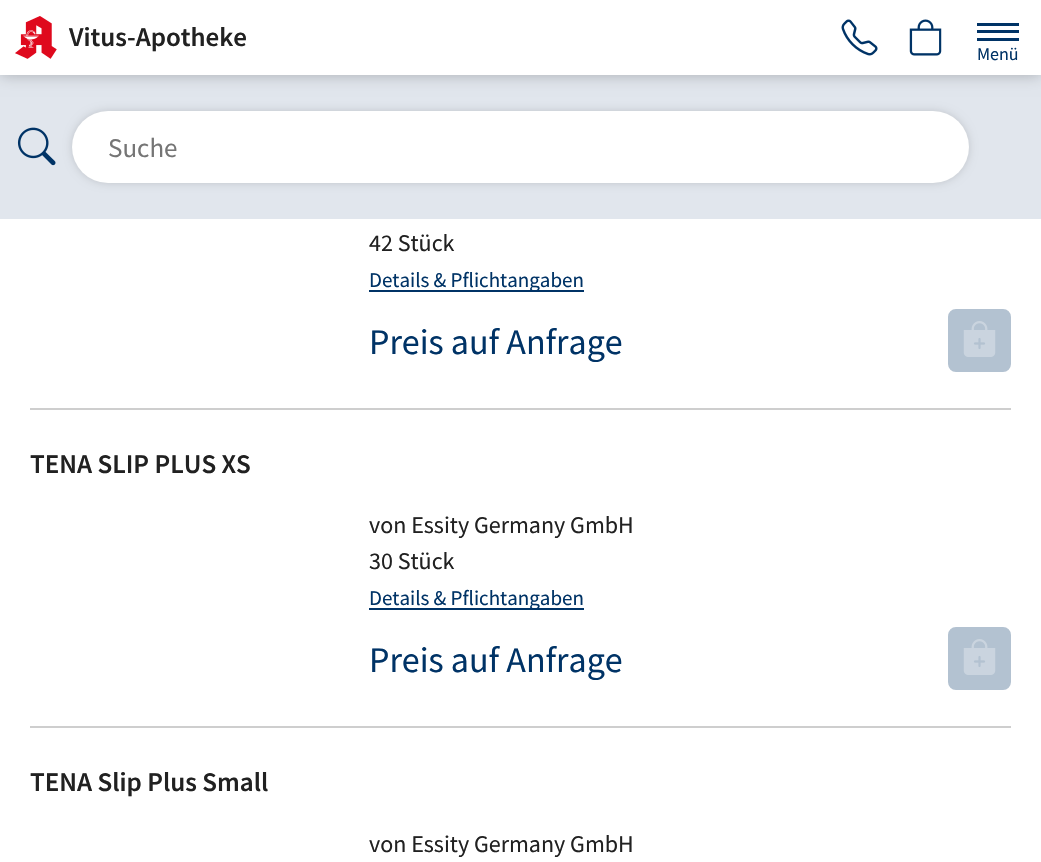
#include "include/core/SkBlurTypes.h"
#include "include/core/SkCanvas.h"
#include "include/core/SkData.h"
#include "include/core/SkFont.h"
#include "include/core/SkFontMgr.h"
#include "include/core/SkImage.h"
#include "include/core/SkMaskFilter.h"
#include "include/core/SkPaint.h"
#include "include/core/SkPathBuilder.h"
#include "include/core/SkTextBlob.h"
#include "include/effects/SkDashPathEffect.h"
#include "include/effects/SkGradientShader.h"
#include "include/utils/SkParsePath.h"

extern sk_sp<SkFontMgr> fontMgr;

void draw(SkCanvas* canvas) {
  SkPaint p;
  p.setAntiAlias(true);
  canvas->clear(SK_ColorWHITE);
  p.setColor(SkColorSetRGB(225, 230, 237));
  canvas->drawRect(SkRect::MakeLTRB(0, 75, 1041, 219), p);
  p.setColor(SkColorSetARGB(64, 0, 0, 0));
  p.setMaskFilter(SkMaskFilter::MakeBlur(kNormal_SkBlurStyle, 7.5f));
  canvas->drawRect(SkRect::MakeLTRB(0, 0, 1041, 75), p);
  p.setMaskFilter(nullptr);
  p.setColor(SK_ColorWHITE);
  canvas->drawRect(SkRect::MakeLTRB(0, 0, 1041, 75), p);
  canvas->drawImageRect(SkImages::DeferredFromEncodedData(SkData::MakeFromFileName("images/1.png")), SkRect::MakeLTRB(15, 16, 57, 59), SkSamplingOptions());
  canvas->drawImageRect(SkImages::DeferredFromEncodedData(SkData::MakeFromFileName("images/2.png")), SkRect::MakeLTRB(841, 19, 878, 56), SkSamplingOptions());
  canvas->drawImageRect(SkImages::DeferredFromEncodedData(SkData::MakeFromFileName("images/3.png")), SkRect::MakeLTRB(909, 19, 942, 56), SkSamplingOptions());
  p.setColor(SkColorSetRGB(0, 51, 102));
  canvas->drawRect(SkRect::MakeLTRB(977, 30, 1019, 33), p);
  canvas->drawRect(SkRect::MakeLTRB(977, 23, 1019, 26), p);
  canvas->drawRect(SkRect::MakeLTRB(977, 38, 1019, 41), p);
  canvas->drawImageRect(SkImages::DeferredFromEncodedData(SkData::MakeFromFileName("images/4.png")), SkRect::MakeLTRB(17, 127, 56, 166), SkSamplingOptions());
  p.setColor(SkColorSetARGB(38, 0, 0, 0));
  p.setMaskFilter(SkMaskFilter::MakeBlur(kNormal_SkBlurStyle, 4.5f));
  canvas->drawRoundRect(SkRect::MakeLTRB(72, 111, 969, 183), 36, 36, p);
  p.setMaskFilter(nullptr);
  p.setColor(SK_ColorWHITE);
  canvas->drawRoundRect(SkRect::MakeLTRB(72, 111, 969, 183), 36, 36, p);
  p.setColor(SkColorSetRGB(206, 206, 206));
  canvas->drawRect(SkRect::MakeLTRB(30, 408, 1011, 410), p);
  p.setColor(SkColorSetRGB(0, 51, 102));
  canvas->drawRect(SkRect::MakeLTRB(369, 290, 584, 292), p);
  p.setColor(SkColorSetRGB(179, 194, 209));
  canvas->drawRoundRect(SkRect::MakeLTRB(949, 310, 1010, 371), 7, 7, p);
  p.setStyle(SkPaint::kStroke_Style);
  p.setStrokeWidth(2);
  canvas->drawRoundRect(SkRect::MakeLTRB(949, 310, 1010, 371), 7, 7, p);
  canvas->drawImageRect(SkImages::DeferredFromEncodedData(SkData::MakeFromFileName("images/5.png")), SkRect::MakeLTRB(963, 321, 996, 357), SkSamplingOptions());
  p.setStyle(SkPaint::kFill_Style);
  p.setColor(SkColorSetRGB(206, 206, 206));
  canvas->drawRect(SkRect::MakeLTRB(30, 726, 1011, 728), p);
  p.setColor(SkColorSetRGB(0, 51, 102));
  canvas->drawRect(SkRect::MakeLTRB(369, 608, 584, 610), p);
  p.setColor(SkColorSetRGB(179, 194, 209));
  canvas->drawRoundRect(SkRect::MakeLTRB(949, 628, 1010, 689), 7, 7, p);
  p.setStyle(SkPaint::kStroke_Style);
  canvas->drawRoundRect(SkRect::MakeLTRB(949, 628, 1010, 689), 7, 7, p);
  canvas->drawImageRect(SkImages::DeferredFromEncodedData(SkData::MakeFromFileName("images/5.png")), SkRect::MakeLTRB(963, 639, 996, 675), SkSamplingOptions());
  SkFont font1(fontMgr->matchFamilyStyle("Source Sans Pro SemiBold", SkFontStyle(600, SkFontStyle::kNormal_Width, SkFontStyle::kUpright_Slant)), 27);
  font1.setSubpixel(true);
  p.setStyle(SkPaint::kFill_Style);
  p.setColor(SkColorSetRGB(33, 33, 33));
  canvas->drawString("Vitus-Apotheke", 69, 46, font1, p);
  SkFont font2(fontMgr->matchFamilyStyle("Source Sans Pro", SkFontStyle::Normal()), 18);
  font2.setSubpixel(true);
  p.setColor(SkColorSetRGB(0, 51, 102));
  canvas->drawString("Menü", 977, 60, font2, p);
  SkFont font3(fontMgr->matchFamilyStyle("Source Sans Pro", SkFontStyle::Normal()), 27);
  font3.setSubpixel(true);
  p.setColor(SkColorSetRGB(117, 117, 117));
  canvas->drawString("Suche", 108, 157, font3, p);
  SkFont font4(fontMgr->matchFamilyStyle("Source Sans Pro", SkFontStyle::Normal()), 24);
  font4.setSubpixel(true);
  p.setColor(SkColorSetRGB(33, 33, 33));
  canvas->drawString("42 Stück", 369, 251, font4, p);
  SkFont font5(fontMgr->matchFamilyStyle("Source Sans Pro", SkFontStyle::Normal()), 21);
  font5.setSubpixel(true);
  p.setColor(SkColorSetRGB(0, 51, 102));
  canvas->drawString("Details & Pflichtangaben", 369, 287, font5, p);
  SkFont font6(fontMgr->matchFamilyStyle("Source Sans Pro", SkFontStyle::Normal()), 36);
  font6.setSubpixel(true);
  canvas->drawString("Preis auf Anfrage", 369, 354, font6, p);
  p.setColor(SkColorSetRGB(33, 33, 33));
  canvas->drawString("TENA SLIP PLUS XS", 30, 473, font1, p);
  canvas->drawString("von Essity Germany GmbH", 369, 533, font4, p);
  canvas->drawString("30 Stück", 369, 569, font4, p);
  p.setColor(SkColorSetRGB(0, 51, 102));
  canvas->drawString("Details & Pflichtangaben", 369, 605, font5, p);
  canvas->drawString("Preis auf Anfrage", 369, 672, font6, p);
  p.setColor(SkColorSetRGB(33, 33, 33));
  canvas->drawString("TENA Slip Plus Small", 30, 791, font1, p);
  canvas->drawString("von Essity Germany GmbH", 369, 852, font4, p);
}
